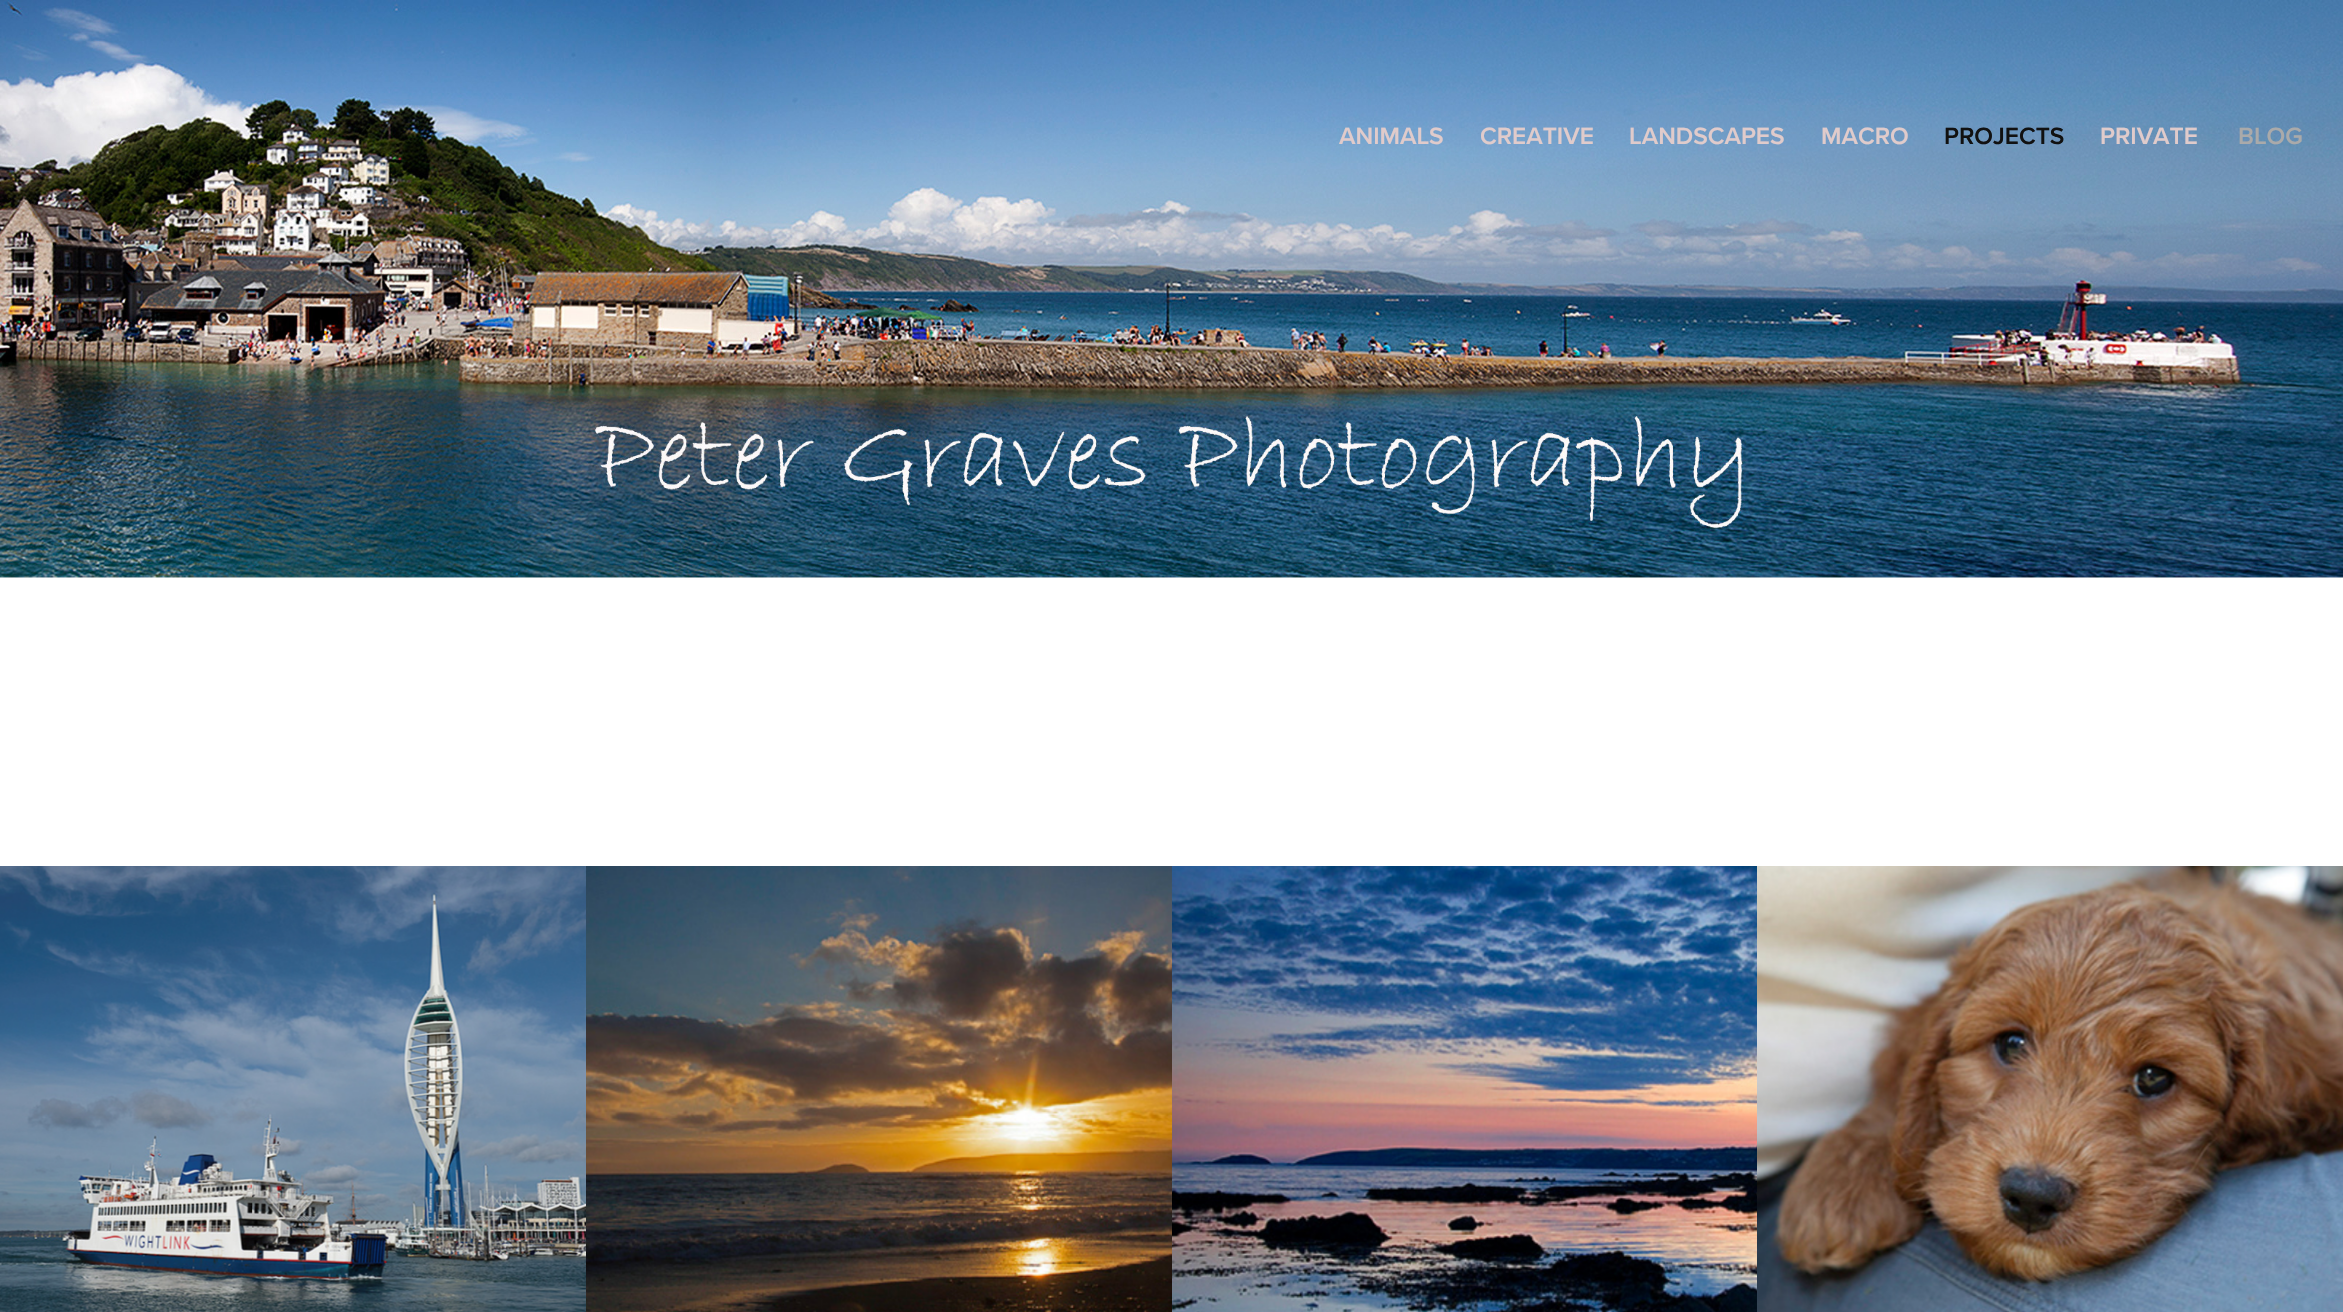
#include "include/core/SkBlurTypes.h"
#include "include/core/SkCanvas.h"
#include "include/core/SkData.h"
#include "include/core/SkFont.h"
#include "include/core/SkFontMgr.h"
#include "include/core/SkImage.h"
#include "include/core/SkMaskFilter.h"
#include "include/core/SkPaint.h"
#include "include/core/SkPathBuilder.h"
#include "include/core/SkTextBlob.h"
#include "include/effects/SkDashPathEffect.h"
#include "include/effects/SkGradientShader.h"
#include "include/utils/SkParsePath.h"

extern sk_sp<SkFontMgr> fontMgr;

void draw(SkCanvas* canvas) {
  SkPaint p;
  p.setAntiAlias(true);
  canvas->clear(SK_ColorWHITE);
  canvas->drawImageRect(SkImages::DeferredFromEncodedData(SkData::MakeFromFileName("images/1.png")), SkRect::MakeLTRB(0, 0, 2343, 578), SkSamplingOptions());
  canvas->drawImageRect(SkImages::DeferredFromEncodedData(SkData::MakeFromFileName("images/2.png")), SkRect::MakeLTRB(0, 866, 586, 1312), SkSamplingOptions());
  canvas->drawImageRect(SkImages::DeferredFromEncodedData(SkData::MakeFromFileName("images/3.png")), SkRect::MakeLTRB(586, 866, 1172, 1312), SkSamplingOptions());
  canvas->drawImageRect(SkImages::DeferredFromEncodedData(SkData::MakeFromFileName("images/4.png")), SkRect::MakeLTRB(1172, 866, 1757, 1312), SkSamplingOptions());
  canvas->drawImageRect(SkImages::DeferredFromEncodedData(SkData::MakeFromFileName("images/5.png")), SkRect::MakeLTRB(1757, 866, 2343, 1312), SkSamplingOptions());
  SkFont font1(fontMgr->matchFamilyStyle("Proxima Nova", SkFontStyle(600, SkFontStyle::kNormal_Width, SkFontStyle::kUpright_Slant)), 24.5f);
  font1.setSubpixel(true);
  p.setColor(SkColorSetRGB(224, 203, 203));
  canvas->drawString("ANIMALS", 1339, 144, font1, p);
  canvas->drawString("CREATIVE", 1480, 144, font1, p);
  canvas->drawString("LANDSCAPES", 1629, 144, font1, p);
  canvas->drawString("MACRO", 1821, 144, font1, p);
  p.setColor(SkColorSetRGB(17, 17, 17));
  canvas->drawString("PROJECTS", 1944, 144, font1, p);
  p.setColor(SkColorSetRGB(224, 203, 203));
  canvas->drawString("PRIVATE", 2100, 144, font1, p);
  p.setColor(SkColorSetRGB(170, 170, 170));
  canvas->drawString("BLOG", 2238, 144, font1, p);
}
